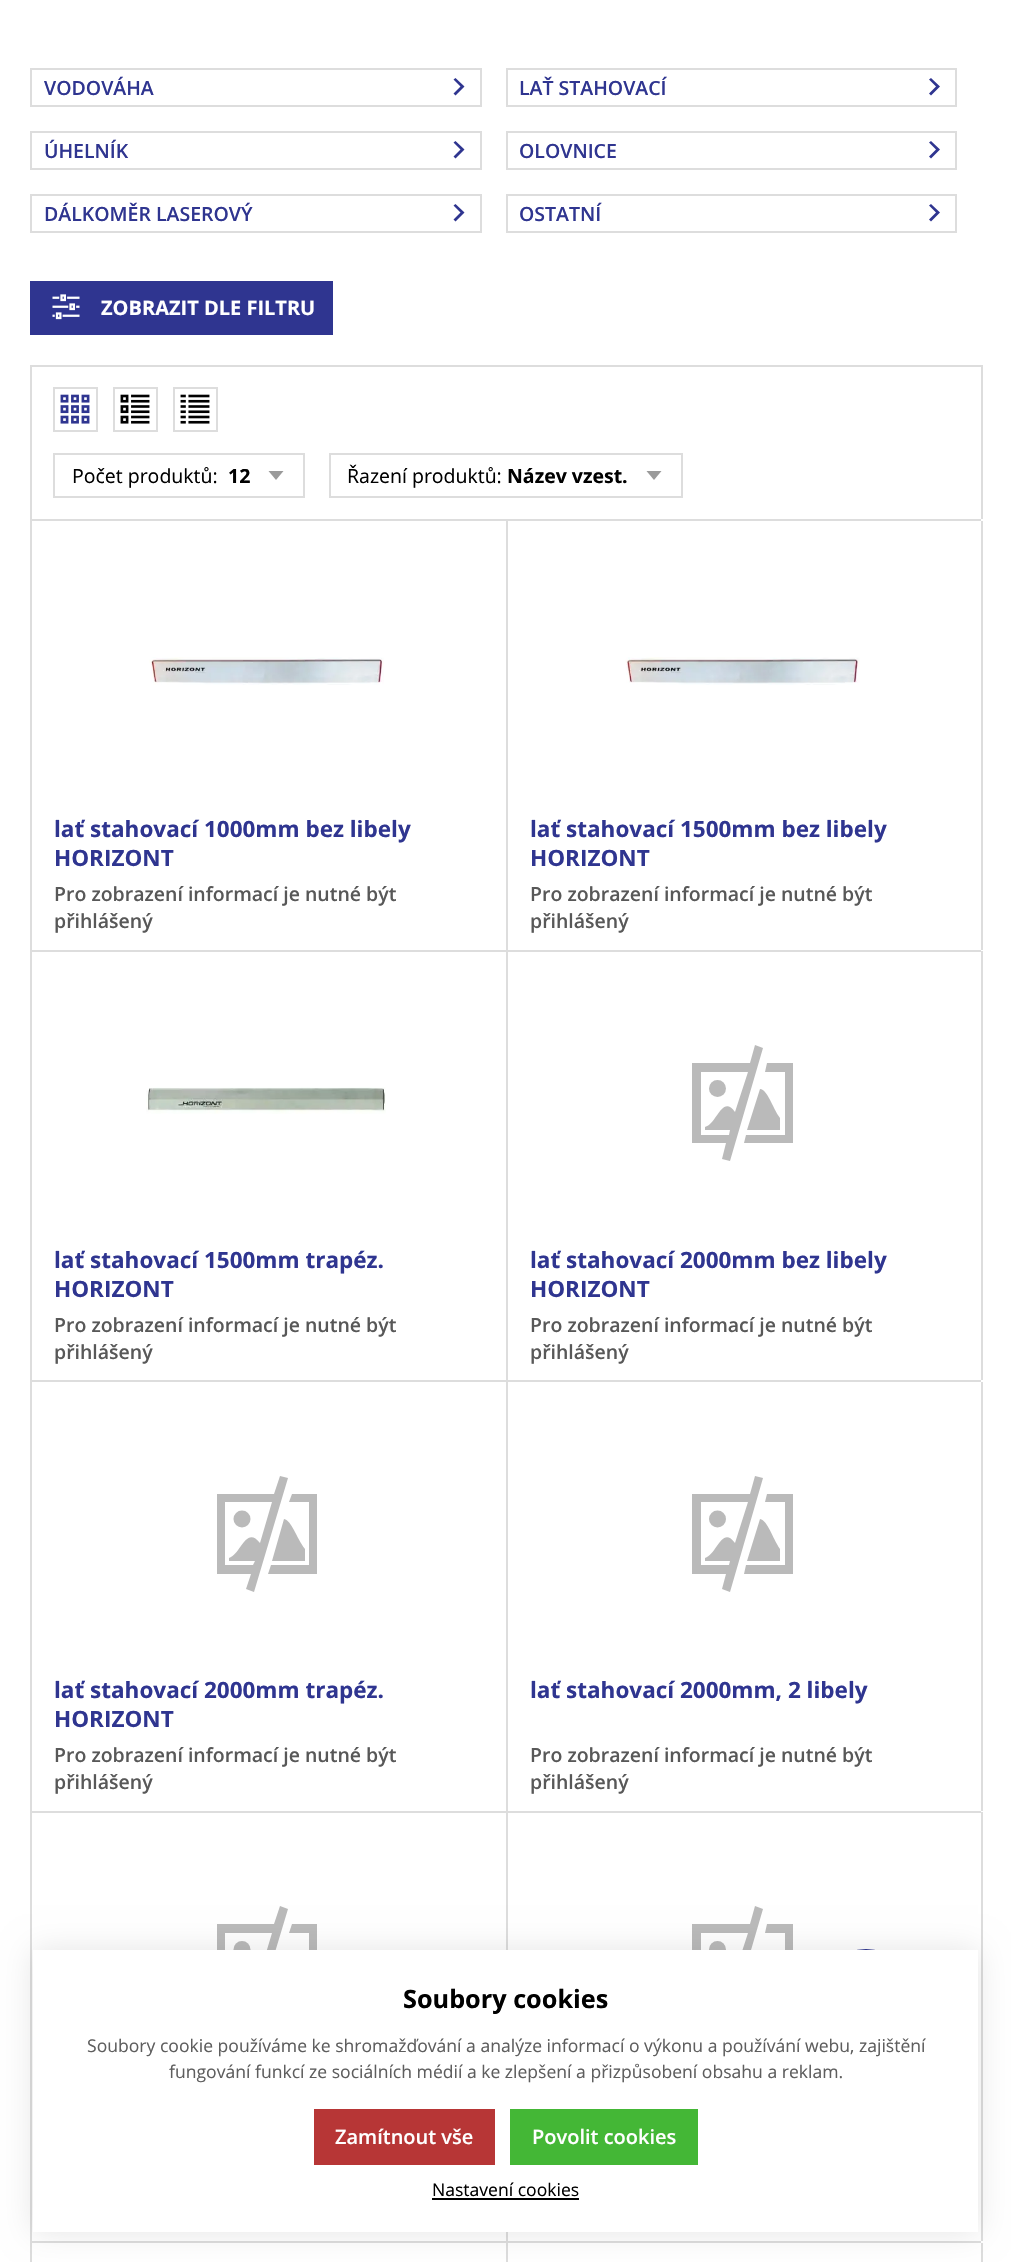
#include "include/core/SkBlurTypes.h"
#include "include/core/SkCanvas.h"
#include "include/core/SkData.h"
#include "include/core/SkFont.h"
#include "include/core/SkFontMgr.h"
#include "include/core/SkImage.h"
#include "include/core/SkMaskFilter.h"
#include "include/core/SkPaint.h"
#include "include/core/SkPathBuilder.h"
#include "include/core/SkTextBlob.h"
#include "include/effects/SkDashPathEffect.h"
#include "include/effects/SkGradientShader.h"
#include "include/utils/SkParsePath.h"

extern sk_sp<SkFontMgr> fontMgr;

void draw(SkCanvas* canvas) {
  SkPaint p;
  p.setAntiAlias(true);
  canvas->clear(SK_ColorWHITE);
  p.setStyle(SkPaint::kStroke_Style);
  p.setStrokeWidth(2);
  p.setColor(SkColorSetRGB(221, 221, 221));
  canvas->drawRect(SkRect::MakeLTRB(31, 69, 481, 106), p);
  p.setStyle(SkPaint::kFill_Style);
  p.setColor(SkColorSetRGB(47, 53, 144));
  canvas->drawPath(SkPathBuilder().moveTo(455.5f, 78).lineTo(464.5f, 86.5f).lineTo(455.5f, 95.5f).lineTo(453.5f, 93.5f).lineTo(460.5f, 86.5f).lineTo(453.5f, 79.5f).close().detach(), p);
  p.setStyle(SkPaint::kStroke_Style);
  p.setColor(SkColorSetRGB(221, 221, 221));
  canvas->drawRect(SkRect::MakeLTRB(507, 69, 956, 106), p);
  p.setStyle(SkPaint::kFill_Style);
  p.setColor(SkColorSetRGB(47, 53, 144));
  canvas->drawPath(SkPathBuilder().moveTo(931, 78).lineTo(940, 86.5f).lineTo(931, 95.5f).lineTo(929, 93.5f).lineTo(936, 86.5f).lineTo(929, 79.5f).close().detach(), p);
  p.setStyle(SkPaint::kStroke_Style);
  p.setColor(SkColorSetRGB(221, 221, 221));
  canvas->drawRect(SkRect::MakeLTRB(31, 132, 481, 169), p);
  p.setStyle(SkPaint::kFill_Style);
  p.setColor(SkColorSetRGB(47, 53, 144));
  canvas->drawPath(SkPathBuilder().moveTo(455.5f, 141).lineTo(464.5f, 149.5f).lineTo(455.5f, 158.5f).lineTo(453.5f, 156.5f).lineTo(460.5f, 149.5f).lineTo(453.5f, 142.5f).close().detach(), p);
  p.setStyle(SkPaint::kStroke_Style);
  p.setColor(SkColorSetRGB(221, 221, 221));
  canvas->drawRect(SkRect::MakeLTRB(507, 132, 956, 169), p);
  p.setStyle(SkPaint::kFill_Style);
  p.setColor(SkColorSetRGB(47, 53, 144));
  canvas->drawPath(SkPathBuilder().moveTo(931, 141).lineTo(940, 149.5f).lineTo(931, 158.5f).lineTo(929, 156.5f).lineTo(936, 149.5f).lineTo(929, 142.5f).close().detach(), p);
  p.setStyle(SkPaint::kStroke_Style);
  p.setColor(SkColorSetRGB(221, 221, 221));
  canvas->drawRect(SkRect::MakeLTRB(31, 195, 481, 232), p);
  p.setStyle(SkPaint::kFill_Style);
  p.setColor(SkColorSetRGB(47, 53, 144));
  canvas->drawPath(SkPathBuilder().moveTo(455.5f, 204).lineTo(464.5f, 212.5f).lineTo(455.5f, 221.5f).lineTo(453.5f, 219.5f).lineTo(460.5f, 212.5f).lineTo(453.5f, 205.5f).close().detach(), p);
  p.setStyle(SkPaint::kStroke_Style);
  p.setColor(SkColorSetRGB(221, 221, 221));
  canvas->drawRect(SkRect::MakeLTRB(507, 195, 956, 232), p);
  p.setStyle(SkPaint::kFill_Style);
  p.setColor(SkColorSetRGB(47, 53, 144));
  canvas->drawPath(SkPathBuilder().moveTo(931, 204).lineTo(940, 212.5f).lineTo(931, 221.5f).lineTo(929, 219.5f).lineTo(936, 212.5f).lineTo(929, 205.5f).close().detach(), p);
  canvas->drawRect(SkRect::MakeLTRB(30, 281, 333, 335), p);
  canvas->drawImageRect(SkImages::DeferredFromEncodedData(SkData::MakeFromFileName("images/1.png")), SkRect::MakeLTRB(52, 294, 80, 320), SkSamplingOptions());
  p.setColor(SkColorSetRGB(221, 221, 221));
  canvas->drawRect(SkRect::MakeLTRB(30, 365, 983, 367), p);
  canvas->drawRect(SkRect::MakeLTRB(981, 365, 983, 519), p);
  canvas->drawRect(SkRect::MakeLTRB(30, 365, 32, 519), p);
  p.setStyle(SkPaint::kStroke_Style);
  canvas->drawRect(SkRect::MakeLTRB(54, 388, 97, 431), p);
  canvas->drawImageRect(SkImages::DeferredFromEncodedData(SkData::MakeFromFileName("images/2.png")), SkRect::MakeLTRB(60, 394, 90, 424), SkSamplingOptions());
  canvas->drawRect(SkRect::MakeLTRB(114, 388, 157, 431), p);
  canvas->drawImageRect(SkImages::DeferredFromEncodedData(SkData::MakeFromFileName("images/3.png")), SkRect::MakeLTRB(120, 394, 150, 424), SkSamplingOptions());
  canvas->drawRect(SkRect::MakeLTRB(174, 388, 217, 431), p);
  canvas->drawImageRect(SkImages::DeferredFromEncodedData(SkData::MakeFromFileName("images/4.png")), SkRect::MakeLTRB(180, 394, 210, 424), SkSamplingOptions());
  p.setStyle(SkPaint::kFill_Style);
  p.setColor(SkColorSetRGB(154, 154, 154));
  canvas->drawPath(SkPathBuilder().moveTo(276, 480).lineTo(268.5f, 471).lineTo(283.5f, 471).close().detach(), p);
  p.setStyle(SkPaint::kStroke_Style);
  p.setColor(SkColorSetRGB(221, 221, 221));
  canvas->drawRect(SkRect::MakeLTRB(54, 454, 304, 497), p);
  p.setStyle(SkPaint::kFill_Style);
  p.setColor(SkColorSetRGB(154, 154, 154));
  canvas->drawPath(SkPathBuilder().moveTo(654, 480).lineTo(646.5f, 471).lineTo(661.5f, 471).close().detach(), p);
  p.setStyle(SkPaint::kStroke_Style);
  p.setColor(SkColorSetRGB(221, 221, 221));
  canvas->drawRect(SkRect::MakeLTRB(330, 454, 682, 497), p);
  p.setStyle(SkPaint::kFill_Style);
  canvas->drawRect(SkRect::MakeLTRB(30, 519, 981, 521), p);
  canvas->drawRect(SkRect::MakeLTRB(30, 950, 981, 952), p);
  canvas->drawRect(SkRect::MakeLTRB(506, 521, 508, 950), p);
  canvas->drawRect(SkRect::MakeLTRB(30, 521, 32, 950), p);
  canvas->drawImageRect(SkImages::DeferredFromEncodedData(SkData::MakeFromFileName("images/5.png")), SkRect::MakeLTRB(149, 657, 384, 685), SkSamplingOptions());
  canvas->drawImageRect(SkImages::DeferredFromEncodedData(SkData::MakeFromFileName("images/6.png")), SkRect::MakeLTRB(625, 657, 860, 685), SkSamplingOptions());
  canvas->drawRect(SkRect::MakeLTRB(981, 521, 983, 950), p);
  canvas->drawRect(SkRect::MakeLTRB(30, 1380, 981, 1382), p);
  canvas->drawRect(SkRect::MakeLTRB(506, 951, 508, 1380), p);
  canvas->drawRect(SkRect::MakeLTRB(30, 951, 32, 1380), p);
  canvas->drawImageRect(SkImages::DeferredFromEncodedData(SkData::MakeFromFileName("images/7.png")), SkRect::MakeLTRB(146, 1087, 386, 1114), SkSamplingOptions());
  p.setColor(SkColorSetRGB(186, 186, 186));
  canvas->drawCircle(717.5f, 1088.5f, 8.5f, p);
  canvas->drawPath(SkPathBuilder().moveTo(767, 1063).lineTo(765, 1072).lineTo(785, 1072).lineTo(785, 1135).lineTo(746, 1135).lineTo(744, 1143).lineTo(793, 1143).lineTo(793, 1063).close().detach(), p);
  canvas->drawPath(SkPathBuilder().moveTo(747, 1130).lineTo(780, 1130).lineTo(780, 1118).cubicTo(772, 1107, 768, 1090, 760, 1089).close().detach(), p);
  canvas->drawPath(SkPathBuilder().moveTo(755, 1045).lineTo(750, 1063).lineTo(692, 1063).lineTo(692, 1143).lineTo(726, 1143).lineTo(722, 1159).lineTo(730, 1161).lineTo(763, 1048).close().moveTo(735, 1112).cubicTo(722, 1094, 717, 1124, 705, 1127).lineTo(705, 1130).lineTo(730, 1130).lineTo(729, 1135).lineTo(701, 1135).lineTo(701, 1072).lineTo(748, 1072).close().detach(), p);
  p.setColor(SkColorSetRGB(221, 221, 221));
  canvas->drawRect(SkRect::MakeLTRB(981, 951, 983, 1380), p);
  canvas->drawRect(SkRect::MakeLTRB(30, 1811, 981, 1813), p);
  canvas->drawRect(SkRect::MakeLTRB(506, 1382, 508, 1811), p);
  canvas->drawRect(SkRect::MakeLTRB(30, 1382, 32, 1811), p);
  p.setColor(SkColorSetRGB(186, 186, 186));
  canvas->drawCircle(242, 1519, 8.5f, p);
  canvas->drawPath(SkPathBuilder().moveTo(292, 1494).lineTo(289, 1502).lineTo(309, 1502).lineTo(309, 1565).lineTo(271, 1565).lineTo(268, 1574).lineTo(317, 1574).lineTo(317, 1494).close().detach(), p);
  canvas->drawPath(SkPathBuilder().moveTo(272, 1561).lineTo(305, 1561).lineTo(305, 1549).cubicTo(296, 1537, 292, 1521, 284, 1519).close().detach(), p);
  canvas->drawPath(SkPathBuilder().moveTo(280, 1476).lineTo(274, 1494).lineTo(217, 1494).lineTo(217, 1574).lineTo(251, 1574).lineTo(246, 1589).lineTo(254, 1592).lineTo(288, 1478).close().moveTo(260, 1543).cubicTo(246, 1525, 241, 1554, 229, 1558).lineTo(229, 1561).lineTo(255, 1561).lineTo(253, 1565).lineTo(225, 1565).lineTo(225, 1502).lineTo(272, 1502).close().detach(), p);
  canvas->drawCircle(717.5f, 1519, 8.5f, p);
  canvas->drawPath(SkPathBuilder().moveTo(767, 1494).lineTo(765, 1502).lineTo(785, 1502).lineTo(785, 1565).lineTo(746, 1565).lineTo(744, 1574).lineTo(793, 1574).lineTo(793, 1494).close().detach(), p);
  canvas->drawPath(SkPathBuilder().moveTo(747, 1561).lineTo(780, 1561).lineTo(780, 1549).cubicTo(772, 1537, 768, 1521, 760, 1519).close().detach(), p);
  canvas->drawPath(SkPathBuilder().moveTo(755, 1476).lineTo(750, 1494).lineTo(692, 1494).lineTo(692, 1574).lineTo(726, 1574).lineTo(722, 1589).lineTo(730, 1592).lineTo(763, 1478).close().moveTo(735, 1543).cubicTo(722, 1525, 717, 1554, 705, 1558).lineTo(705, 1561).lineTo(730, 1561).lineTo(729, 1565).lineTo(701, 1565).lineTo(701, 1502).lineTo(748, 1502).close().detach(), p);
  p.setColor(SkColorSetRGB(221, 221, 221));
  canvas->drawRect(SkRect::MakeLTRB(981, 1382, 983, 1811), p);
  canvas->drawRect(SkRect::MakeLTRB(30, 2241, 981, 2243), p);
  canvas->drawRect(SkRect::MakeLTRB(506, 1812, 508, 2241), p);
  canvas->drawRect(SkRect::MakeLTRB(30, 1812, 32, 2241), p);
  p.setColor(SkColorSetRGB(186, 186, 186));
  canvas->drawCircle(242, 1949.5f, 8.5f, p);
  canvas->drawPath(SkPathBuilder().moveTo(292, 1924).lineTo(289, 1933).lineTo(309, 1933).lineTo(309, 1996).lineTo(271, 1996).lineTo(268, 2004).lineTo(317, 2004).lineTo(317, 1924).close().detach(), p);
  canvas->drawPath(SkPathBuilder().moveTo(280, 1906).lineTo(274, 1924).lineTo(217, 1924).lineTo(217, 2004).lineTo(251, 2004).lineTo(246, 2020).lineTo(254, 2022).lineTo(288, 1909).close().moveTo(260, 1973).cubicTo(246, 1955, 241, 1985, 229, 1988).lineTo(229, 1991).lineTo(255, 1991).lineTo(253, 1996).lineTo(225, 1996).lineTo(225, 1933).lineTo(272, 1933).close().detach(), p);
  canvas->drawCircle(717.5f, 1949.5f, 8.5f, p);
  canvas->drawPath(SkPathBuilder().moveTo(767, 1924).lineTo(765, 1933).lineTo(785, 1933).lineTo(785, 1996).lineTo(746, 1996).lineTo(744, 2004).lineTo(793, 2004).lineTo(793, 1924).close().detach(), p);
  canvas->drawPath(SkPathBuilder().moveTo(755, 1906).lineTo(750, 1924).lineTo(692, 1924).lineTo(692, 2004).lineTo(726, 2004).lineTo(722, 2020).lineTo(730, 2022).lineTo(763, 1909).close().moveTo(735, 1973).cubicTo(722, 1955, 717, 1985, 705, 1988).lineTo(705, 1991).lineTo(730, 1991).lineTo(729, 1996).lineTo(701, 1996).lineTo(701, 1933).lineTo(748, 1933).close().detach(), p);
  p.setColor(SkColorSetRGB(221, 221, 221));
  canvas->drawRect(SkRect::MakeLTRB(981, 1812, 983, 2241), p);
  canvas->drawRect(SkRect::MakeLTRB(506, 2243, 508, 2262), p);
  canvas->drawRect(SkRect::MakeLTRB(30, 2243, 32, 2262), p);
  canvas->drawRect(SkRect::MakeLTRB(981, 2243, 983, 2262), p);
  p.setColor(SkColorSetRGB(47, 53, 144));
  canvas->drawCircle(866, 1991, 43.5f, p);
  p.setStyle(SkPaint::kStroke_Style);
  p.setStrokeWidth(3);
  p.setColor(SK_ColorWHITE);
  canvas->drawCircle(866, 1991, 43.5f, p);
  p.setStyle(SkPaint::kFill_Style);
  p.setColor(SkColorSetARGB(26, 0, 0, 0));
  p.setMaskFilter(SkMaskFilter::MakeBlur(kNormal_SkBlurStyle, 15));
  canvas->drawRect(SkRect::MakeLTRB(33, 1950, 978, 2232), p);
  p.setMaskFilter(nullptr);
  p.setColor(SK_ColorWHITE);
  canvas->drawRect(SkRect::MakeLTRB(33, 1950, 978, 2232), p);
  p.setColor(SkColorSetRGB(183, 54, 54));
  canvas->drawRect(SkRect::MakeLTRB(314, 2109, 495, 2165), p);
  p.setColor(SkColorSetRGB(68, 183, 54));
  canvas->drawRect(SkRect::MakeLTRB(510, 2109, 698, 2165), p);
  p.setColor(SK_ColorBLACK);
  canvas->drawRect(SkRect::MakeLTRB(432, 2198, 579, 2200), p);
  SkFont font1(fontMgr->matchFamilyStyle("Open Sans", SkFontStyle(600, SkFontStyle::kNormal_Width, SkFontStyle::kUpright_Slant)), 19.5f);
  font1.setSubpixel(true);
  p.setColor(SkColorSetRGB(47, 53, 144));
  canvas->drawString("VODOVÁHA", 44, 95, font1, p);
  canvas->drawString("LAŤ STAHOVACÍ", 519, 95, font1, p);
  canvas->drawString("ÚHELNÍK", 44, 158, font1, p);
  canvas->drawString("OLOVNICE", 519, 158, font1, p);
  canvas->drawString("DÁLKOMĚR LASEROVÝ", 44, 221, font1, p);
  canvas->drawString("OSTATNÍ", 519, 221, font1, p);
  SkFont font2(fontMgr->matchFamilyStyle("Open Sans", SkFontStyle::Bold()), 20);
  font2.setSubpixel(true);
  p.setColor(SK_ColorWHITE);
  canvas->drawString("ZOBRAZIT DLE FILTRU", 101, 315, font2, p);
  SkFont font3(fontMgr->matchFamilyStyle("Open Sans", SkFontStyle::Normal()), 19.5f);
  font3.setSubpixel(true);
  p.setColor(SK_ColorBLACK);
  canvas->drawString("Počet produktů:", 72, 483, font3, p);
  SkFont font4(fontMgr->matchFamilyStyle("Open Sans", SkFontStyle::Bold()), 19.5f);
  font4.setSubpixel(true);
  canvas->drawString("12", 228, 483, font4, p);
  canvas->drawString("Řazení produktů:", 347, 483, font3, p);
  canvas->drawString("Název vzest.", 507, 483, font4, p);
  SkFont font5(fontMgr->matchFamilyStyle("Open Sans", SkFontStyle::Bold()), 22.5f);
  font5.setSubpixel(true);
  p.setColor(SkColorSetRGB(47, 53, 144));
  canvas->drawString("lať stahovací 1000mm bez libely", 54, 837, font5, p);
  canvas->drawString("HORIZONT", 54, 866, font5, p);
  p.setColor(SkColorSetRGB(88, 88, 88));
  canvas->drawString("Pro zobrazení informací je nutné být", 54, 901, font1, p);
  canvas->drawString("přihlášený", 54, 928, font1, p);
  p.setColor(SkColorSetRGB(47, 53, 144));
  canvas->drawString("lať stahovací 1500mm bez libely", 530, 837, font5, p);
  canvas->drawString("HORIZONT", 530, 866, font5, p);
  p.setColor(SkColorSetRGB(88, 88, 88));
  canvas->drawString("Pro zobrazení informací je nutné být", 530, 901, font1, p);
  canvas->drawString("přihlášený", 530, 928, font1, p);
  p.setColor(SkColorSetRGB(47, 53, 144));
  canvas->drawString("lať stahovací 1500mm trapéz.", 54, 1268, font5, p);
  canvas->drawString("HORIZONT", 54, 1297, font5, p);
  p.setColor(SkColorSetRGB(88, 88, 88));
  canvas->drawString("Pro zobrazení informací je nutné být", 54, 1332, font1, p);
  canvas->drawString("přihlášený", 54, 1359, font1, p);
  p.setColor(SkColorSetRGB(47, 53, 144));
  canvas->drawString("lať stahovací 2000mm bez libely", 530, 1268, font5, p);
  canvas->drawString("HORIZONT", 530, 1297, font5, p);
  p.setColor(SkColorSetRGB(88, 88, 88));
  canvas->drawString("Pro zobrazení informací je nutné být", 530, 1332, font1, p);
  canvas->drawString("přihlášený", 530, 1359, font1, p);
  p.setColor(SkColorSetRGB(47, 53, 144));
  canvas->drawString("lať stahovací 2000mm trapéz.", 54, 1698, font5, p);
  canvas->drawString("HORIZONT", 54, 1727, font5, p);
  p.setColor(SkColorSetRGB(88, 88, 88));
  canvas->drawString("Pro zobrazení informací je nutné být", 54, 1762, font1, p);
  canvas->drawString("přihlášený", 54, 1789, font1, p);
  p.setColor(SkColorSetRGB(47, 53, 144));
  canvas->drawString("lať stahovací 2000mm, 2 libely", 530, 1698, font5, p);
  p.setColor(SkColorSetRGB(88, 88, 88));
  canvas->drawString("Pro zobrazení informací je nutné být", 530, 1762, font1, p);
  canvas->drawString("přihlášený", 530, 1789, font1, p);
  SkFont font6(fontMgr->matchFamilyStyle("Open Sans", SkFontStyle::Bold()), 25.25f);
  font6.setSubpixel(true);
  p.setColor(SK_ColorBLACK);
  canvas->drawString("Soubory cookies", 403, 2008, font6, p);
  SkFont font7(fontMgr->matchFamilyStyle("Open Sans", SkFontStyle::Normal()), 17.55f);
  font7.setSubpixel(true);
  p.setColor(SkColorSetRGB(94, 94, 94));
  canvas->drawString("Soubory cookie používáme ke shromažďování a analýze informací o výkonu a používání webu, zajištění", 87, 2052, font7, p);
  canvas->drawString("fungování funkcí ze sociálních médií a ke zlepšení a přizpůsobení obsahu a reklam.", 169, 2078, font7, p);
  SkFont font8(fontMgr->matchFamilyStyle("Open Sans", SkFontStyle(600, SkFontStyle::kNormal_Width, SkFontStyle::kUpright_Slant)), 20);
  font8.setSubpixel(true);
  p.setColor(SK_ColorWHITE);
  canvas->drawString("Zamítnout vše", 335, 2144, font8, p);
  canvas->drawString("Povolit cookies", 532, 2144, font8, p);
  p.setColor(SK_ColorBLACK);
  canvas->drawString("Nastavení cookies", 432, 2196, font7, p);
}
